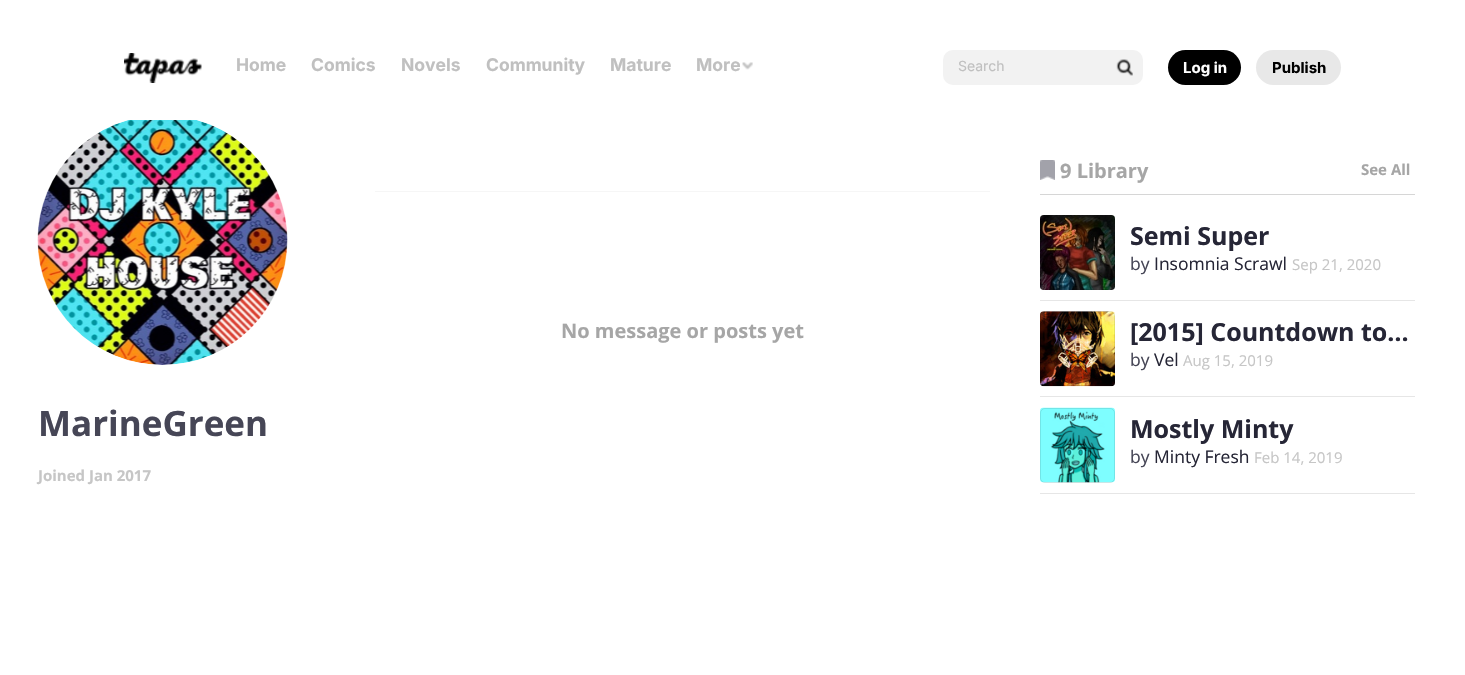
#include "include/core/SkBlurTypes.h"
#include "include/core/SkCanvas.h"
#include "include/core/SkData.h"
#include "include/core/SkFont.h"
#include "include/core/SkFontMgr.h"
#include "include/core/SkImage.h"
#include "include/core/SkMaskFilter.h"
#include "include/core/SkPaint.h"
#include "include/core/SkPathBuilder.h"
#include "include/core/SkTextBlob.h"
#include "include/effects/SkDashPathEffect.h"
#include "include/effects/SkGradientShader.h"
#include "include/utils/SkParsePath.h"

extern sk_sp<SkFontMgr> fontMgr;

void draw(SkCanvas* canvas) {
  SkPaint p;
  p.setAntiAlias(true);
  canvas->clear(SK_ColorWHITE);
  canvas->drawImageRect(SkImages::DeferredFromEncodedData(SkData::MakeFromFileName("images/1.png")), SkRect::MakeLTRB(124, 53, 202, 83), SkSamplingOptions());
  canvas->drawImageRect(SkImages::DeferredFromEncodedData(SkData::MakeFromFileName("images/2.png")), SkRect::MakeLTRB(742, 62, 753, 70), SkSamplingOptions());
  p.setColor(SkColorSetRGB(242, 242, 242));
  canvas->drawRoundRect(SkRect::MakeLTRB(943, 50, 1143, 85), 10, 10, p);
  canvas->drawImageRect(SkImages::DeferredFromEncodedData(SkData::MakeFromFileName("images/3.png")), SkRect::MakeLTRB(1116, 59, 1133, 76), SkSamplingOptions());
  p.setColor(SK_ColorBLACK);
  canvas->drawRoundRect(SkRect::MakeLTRB(1168, 50, 1241, 85), 17.5f, 17.5f, p);
  p.setColor(SkColorSetRGB(232, 232, 232));
  canvas->drawRoundRect(SkRect::MakeLTRB(1256, 50, 1341, 85), 17.5f, 17.5f, p);
  canvas->drawImageRect(SkImages::DeferredFromEncodedData(SkData::MakeFromFileName("images/4.png")), SkRect::MakeLTRB(37, 120, 288, 365), SkSamplingOptions());
  p.setColor(SkColorSetRGB(246, 246, 246));
  canvas->drawRect(SkRect::MakeLTRB(375, 191, 990, 192), p);
  p.setColor(SkColorSetRGB(214, 214, 214));
  canvas->drawRect(SkRect::MakeLTRB(1040, 194, 1415, 195), p);
  canvas->drawImageRect(SkImages::DeferredFromEncodedData(SkData::MakeFromFileName("images/5.png")), SkRect::MakeLTRB(1040, 160, 1055, 180), SkSamplingOptions());
  p.setColor(SkColorSetRGB(230, 230, 230));
  canvas->drawRect(SkRect::MakeLTRB(1040, 300, 1415, 301), p);
  canvas->drawImageRect(SkImages::DeferredFromEncodedData(SkData::MakeFromFileName("images/6.png")), SkRect::MakeLTRB(1040, 215, 1115, 290), SkSamplingOptions());
  p.setStyle(SkPaint::kStroke_Style);
  p.setStrokeWidth(1);
  p.setColor(SkColorSetARGB(26, 6, 6, 22));
  canvas->drawRoundRect(SkRect::MakeLTRB(1040.5f, 215.5f, 1114.5f, 289.5f), 4.5f, 4.5f, p);
  p.setStyle(SkPaint::kFill_Style);
  p.setColor(SkColorSetRGB(230, 230, 230));
  canvas->drawRect(SkRect::MakeLTRB(1040, 396, 1415, 397), p);
  canvas->drawImageRect(SkImages::DeferredFromEncodedData(SkData::MakeFromFileName("images/7.png")), SkRect::MakeLTRB(1040, 311, 1115, 387), SkSamplingOptions());
  p.setStyle(SkPaint::kStroke_Style);
  p.setColor(SkColorSetARGB(26, 6, 6, 22));
  canvas->drawRoundRect(SkRect::MakeLTRB(1040.5f, 311.5f, 1114.5f, 385.5f), 4.5f, 4.5f, p);
  p.setStyle(SkPaint::kFill_Style);
  p.setColor(SkColorSetRGB(230, 230, 230));
  canvas->drawRect(SkRect::MakeLTRB(1040, 493, 1415, 494), p);
  canvas->drawImageRect(SkImages::DeferredFromEncodedData(SkData::MakeFromFileName("images/8.png")), SkRect::MakeLTRB(1040, 407, 1115, 483), SkSamplingOptions());
  p.setStyle(SkPaint::kStroke_Style);
  p.setColor(SkColorSetARGB(26, 6, 6, 22));
  canvas->drawRoundRect(SkRect::MakeLTRB(1040.5f, 408.5f, 1114.5f, 482.5f), 4.5f, 4.5f, p);
  SkFont font1(fontMgr->matchFamilyStyle("Inter", SkFontStyle::Bold()), 17.5f);
  font1.setSubpixel(true);
  p.setStyle(SkPaint::kFill_Style);
  p.setColor(SkColorSetRGB(192, 192, 192));
  canvas->drawString("Home", 236, 71, font1, p);
  canvas->drawString("Comics", 311, 71, font1, p);
  canvas->drawString("Novels", 401, 71, font1, p);
  canvas->drawString("Community", 486, 71, font1, p);
  canvas->drawString("Mature", 610, 71, font1, p);
  canvas->drawString("More", 696, 71, font1, p);
  SkFont font2(fontMgr->matchFamilyStyle("Inter", SkFontStyle::Normal()), 14);
  font2.setSubpixel(true);
  canvas->drawString("Search", 958, 71, font2, p);
  SkFont font3(fontMgr->matchFamilyStyle("Inter", SkFontStyle::Bold()), 15);
  font3.setSubpixel(true);
  p.setColor(SK_ColorWHITE);
  canvas->drawString("Log in", 1183, 73, font3, p);
  p.setColor(SK_ColorBLACK);
  canvas->drawString("Publish", 1272, 73, font3, p);
  SkFont font4(fontMgr->matchFamilyStyle("Open Sans", SkFontStyle::Bold()), 35);
  font4.setSubpixel(true);
  p.setColor(SkColorSetRGB(70, 70, 86));
  canvas->drawString("MarineGreen", 38, 436, font4, p);
  SkFont font5(fontMgr->matchFamilyStyle("Open Sans", SkFontStyle::Bold()), 15);
  font5.setSubpixel(true);
  p.setColor(SkColorSetRGB(198, 198, 198));
  canvas->drawString("Joined Jan 2017", 38, 481, font5, p);
  SkFont font6(fontMgr->matchFamilyStyle("Open Sans", SkFontStyle::Bold()), 20);
  font6.setSubpixel(true);
  p.setColor(SkColorSetRGB(166, 166, 166));
  canvas->drawString("9 Library", 1060, 178, font6, p);
  canvas->drawString("See All", 1361, 175, font5, p);
  SkFont font7(fontMgr->matchFamilyStyle("Open Sans", SkFontStyle::Bold()), 25);
  font7.setSubpixel(true);
  p.setColor(SkColorSetRGB(38, 38, 54));
  canvas->drawString("Semi Super", 1130, 245, font7, p);
  SkFont font8(fontMgr->matchFamilyStyle("Open Sans", SkFontStyle::Normal()), 17.5f);
  font8.setSubpixel(true);
  p.setColor(SkColorSetRGB(70, 70, 86));
  canvas->drawString("by", 1130, 270, font8, p);
  p.setColor(SkColorSetRGB(38, 38, 54));
  canvas->drawString("Insomnia Scrawl", 1154, 270, font8, p);
  SkFont font9(fontMgr->matchFamilyStyle("Open Sans", SkFontStyle::Normal()), 15);
  font9.setSubpixel(true);
  p.setColor(SkColorSetRGB(198, 198, 198));
  canvas->drawString("Sep 21, 2020", 1292, 270, font9, p);
  p.setColor(SkColorSetRGB(38, 38, 54));
  canvas->drawString("[2015] Countdown to…", 1130, 341, font7, p);
  p.setColor(SkColorSetRGB(70, 70, 86));
  canvas->drawString("by", 1130, 366, font8, p);
  p.setColor(SkColorSetRGB(38, 38, 54));
  canvas->drawString("Vel", 1154, 366, font8, p);
  p.setColor(SkColorSetRGB(198, 198, 198));
  canvas->drawString("Aug 15, 2019", 1183, 366, font9, p);
  p.setColor(SkColorSetRGB(38, 38, 54));
  canvas->drawString("Mostly Minty", 1130, 438, font7, p);
  p.setColor(SkColorSetRGB(70, 70, 86));
  canvas->drawString("by", 1130, 463, font8, p);
  p.setColor(SkColorSetRGB(38, 38, 54));
  canvas->drawString("Minty Fresh", 1154, 463, font8, p);
  p.setColor(SkColorSetRGB(198, 198, 198));
  canvas->drawString("Feb 14, 2019", 1254, 463, font9, p);
  p.setColor(SkColorSetRGB(166, 166, 166));
  canvas->drawString("No message or posts yet", 561, 338, font6, p);
}
